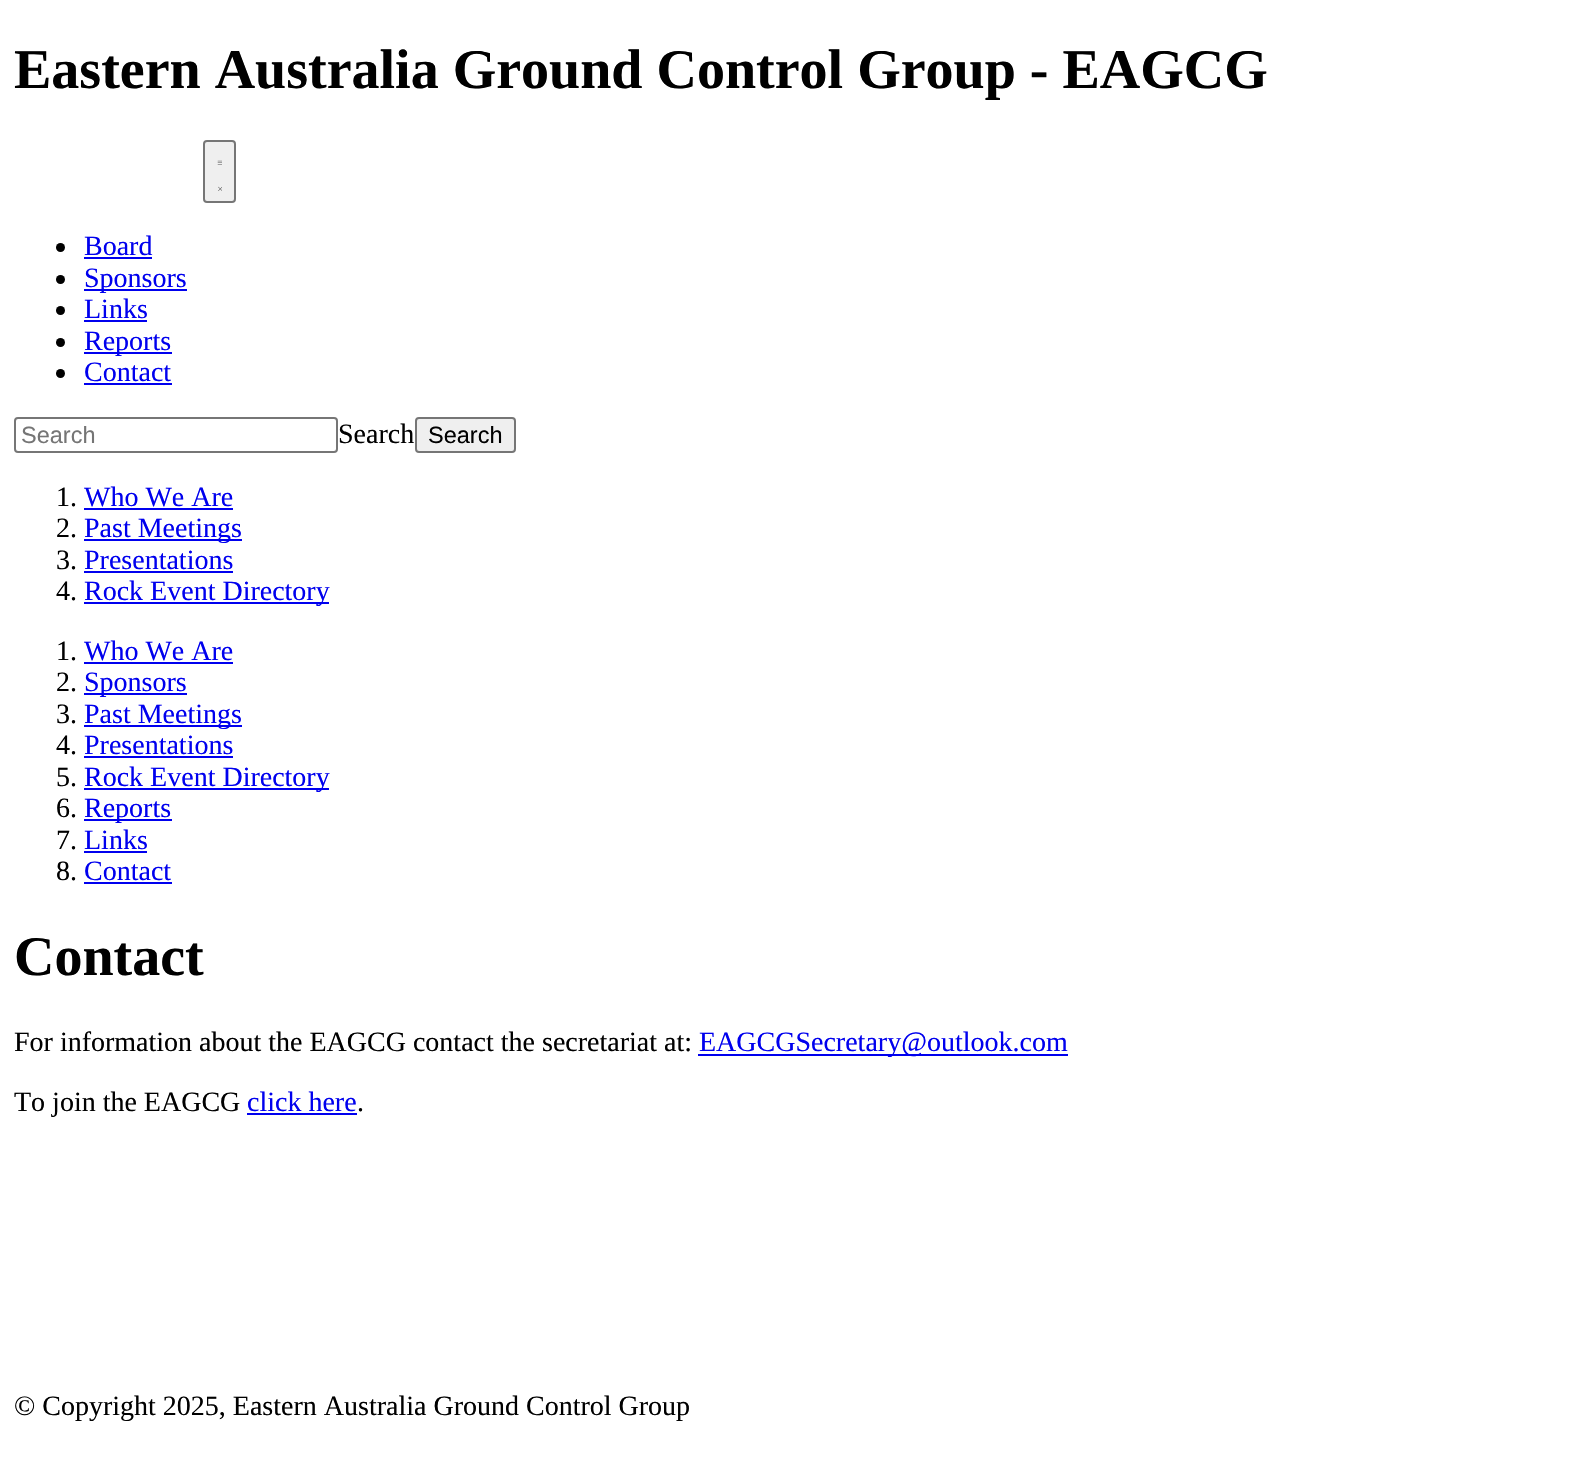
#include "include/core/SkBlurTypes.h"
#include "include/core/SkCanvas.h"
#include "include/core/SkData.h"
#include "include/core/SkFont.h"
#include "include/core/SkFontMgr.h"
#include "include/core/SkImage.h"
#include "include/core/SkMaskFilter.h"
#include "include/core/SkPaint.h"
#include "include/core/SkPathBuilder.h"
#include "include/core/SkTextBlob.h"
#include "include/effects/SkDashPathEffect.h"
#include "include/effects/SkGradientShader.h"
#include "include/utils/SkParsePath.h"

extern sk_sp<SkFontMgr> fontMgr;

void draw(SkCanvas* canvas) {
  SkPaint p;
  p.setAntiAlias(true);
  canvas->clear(SK_ColorWHITE);
  p.setColor(SkColorSetRGB(239, 239, 239));
  canvas->drawRoundRect(SkRect::MakeLTRB(204, 141, 235, 202), 3, 3, p);
  p.setStyle(SkPaint::kStroke_Style);
  p.setStrokeWidth(2);
  p.setColor(SkColorSetRGB(118, 118, 118));
  canvas->drawRoundRect(SkRect::MakeLTRB(204, 141, 235, 202), 3, 3, p);
  canvas->drawImageRect(SkImages::DeferredFromEncodedData(SkData::MakeFromFileName("images/1.png")), SkRect::MakeLTRB(217, 160, 222, 165), SkSamplingOptions());
  canvas->drawImageRect(SkImages::DeferredFromEncodedData(SkData::MakeFromFileName("images/2.png")), SkRect::MakeLTRB(218, 186, 222, 191), SkSamplingOptions());
  p.setStyle(SkPaint::kFill_Style);
  p.setColor(SK_ColorBLACK);
  canvas->drawCircle(60.5f, 247.5f, 4.5f, p);
  p.setColor(SkColorSetRGB(0, 0, 238));
  canvas->drawRect(SkRect::MakeLTRB(84, 257, 152, 259), p);
  p.setColor(SK_ColorBLACK);
  canvas->drawCircle(60.5f, 279.5f, 4.5f, p);
  p.setColor(SkColorSetRGB(0, 0, 238));
  canvas->drawRect(SkRect::MakeLTRB(84, 289, 187, 291), p);
  p.setColor(SK_ColorBLACK);
  canvas->drawCircle(60.5f, 310.5f, 4.5f, p);
  p.setColor(SkColorSetRGB(0, 0, 238));
  canvas->drawRect(SkRect::MakeLTRB(84, 320, 147, 322), p);
  p.setColor(SK_ColorBLACK);
  canvas->drawCircle(60.5f, 342.5f, 4.5f, p);
  p.setColor(SkColorSetRGB(0, 0, 238));
  canvas->drawRect(SkRect::MakeLTRB(84, 352, 172, 354), p);
  p.setColor(SK_ColorBLACK);
  canvas->drawCircle(60.5f, 373.5f, 4.5f, p);
  p.setColor(SkColorSetRGB(0, 0, 238));
  canvas->drawRect(SkRect::MakeLTRB(84, 383, 172, 385), p);
  p.setStyle(SkPaint::kStroke_Style);
  p.setColor(SkColorSetRGB(118, 118, 118));
  canvas->drawRoundRect(SkRect::MakeLTRB(15, 418, 337, 452), 3, 3, p);
  p.setStyle(SkPaint::kFill_Style);
  p.setColor(SkColorSetRGB(239, 239, 239));
  canvas->drawRoundRect(SkRect::MakeLTRB(416, 418, 515, 452), 3, 3, p);
  p.setStyle(SkPaint::kStroke_Style);
  p.setColor(SkColorSetRGB(118, 118, 118));
  canvas->drawRoundRect(SkRect::MakeLTRB(416, 418, 515, 452), 3, 3, p);
  p.setStyle(SkPaint::kFill_Style);
  p.setColor(SkColorSetRGB(0, 0, 238));
  canvas->drawRect(SkRect::MakeLTRB(84, 508, 233, 510), p);
  canvas->drawRect(SkRect::MakeLTRB(84, 539, 242, 541), p);
  canvas->drawRect(SkRect::MakeLTRB(84, 571, 233, 573), p);
  canvas->drawRect(SkRect::MakeLTRB(84, 602, 329, 604), p);
  canvas->drawRect(SkRect::MakeLTRB(84, 662, 233, 664), p);
  canvas->drawRect(SkRect::MakeLTRB(84, 693, 187, 695), p);
  canvas->drawRect(SkRect::MakeLTRB(84, 725, 242, 727), p);
  canvas->drawRect(SkRect::MakeLTRB(84, 756, 233, 758), p);
  canvas->drawRect(SkRect::MakeLTRB(84, 788, 329, 790), p);
  canvas->drawRect(SkRect::MakeLTRB(84, 819, 172, 821), p);
  canvas->drawRect(SkRect::MakeLTRB(84, 851, 147, 853), p);
  canvas->drawRect(SkRect::MakeLTRB(84, 882, 172, 884), p);
  canvas->drawRect(SkRect::MakeLTRB(698, 1054, 1068, 1056), p);
  canvas->drawRect(SkRect::MakeLTRB(247, 1113, 357, 1115), p);
  SkFont font1(fontMgr->matchFamilyStyle("Liberation Serif", SkFontStyle::Bold()), 56);
  font1.setSubpixel(true);
  p.setColor(SK_ColorBLACK);
  canvas->drawString("Eastern Australia Ground Control Group - EAGCG", 14, 88, font1, p);
  SkFont font2(fontMgr->matchFamilyStyle("Liberation Serif", SkFontStyle::Normal()), 28);
  font2.setSubpixel(true);
  p.setColor(SkColorSetRGB(0, 0, 238));
  canvas->drawString("Board", 84, 255, font2, p);
  canvas->drawString("Sponsors", 84, 287, font2, p);
  canvas->drawString("Links", 84, 318, font2, p);
  canvas->drawString("Reports", 84, 350, font2, p);
  canvas->drawString("Contact", 84, 381, font2, p);
  SkFont font3(fontMgr->matchFamilyStyle("Liberation Sans", SkFontStyle::Normal()), 23.5f);
  font3.setSubpixel(true);
  p.setColor(SkColorSetRGB(117, 117, 117));
  canvas->drawString("Search", 21, 443, font3, p);
  p.setColor(SK_ColorBLACK);
  canvas->drawString("Search", 338, 443, font2, p);
  canvas->drawString("Search", 428, 443, font3, p);
  canvas->drawString("1.", 56, 506, font2, p);
  p.setColor(SkColorSetRGB(0, 0, 238));
  canvas->drawString("Who We Are", 84, 506, font2, p);
  p.setColor(SK_ColorBLACK);
  canvas->drawString("2.", 56, 537, font2, p);
  p.setColor(SkColorSetRGB(0, 0, 238));
  canvas->drawString("Past Meetings", 84, 537, font2, p);
  p.setColor(SK_ColorBLACK);
  canvas->drawString("3.", 56, 569, font2, p);
  p.setColor(SkColorSetRGB(0, 0, 238));
  canvas->drawString("Presentations", 84, 569, font2, p);
  p.setColor(SK_ColorBLACK);
  canvas->drawString("4.", 56, 600, font2, p);
  p.setColor(SkColorSetRGB(0, 0, 238));
  canvas->drawString("Rock Event Directory", 84, 600, font2, p);
  p.setColor(SK_ColorBLACK);
  canvas->drawString("1.", 56, 660, font2, p);
  p.setColor(SkColorSetRGB(0, 0, 238));
  canvas->drawString("Who We Are", 84, 660, font2, p);
  p.setColor(SK_ColorBLACK);
  canvas->drawString("2.", 56, 691, font2, p);
  p.setColor(SkColorSetRGB(0, 0, 238));
  canvas->drawString("Sponsors", 84, 691, font2, p);
  p.setColor(SK_ColorBLACK);
  canvas->drawString("3.", 56, 723, font2, p);
  p.setColor(SkColorSetRGB(0, 0, 238));
  canvas->drawString("Past Meetings", 84, 723, font2, p);
  p.setColor(SK_ColorBLACK);
  canvas->drawString("4.", 56, 754, font2, p);
  p.setColor(SkColorSetRGB(0, 0, 238));
  canvas->drawString("Presentations", 84, 754, font2, p);
  p.setColor(SK_ColorBLACK);
  canvas->drawString("5.", 56, 786, font2, p);
  p.setColor(SkColorSetRGB(0, 0, 238));
  canvas->drawString("Rock Event Directory", 84, 786, font2, p);
  p.setColor(SK_ColorBLACK);
  canvas->drawString("6.", 56, 817, font2, p);
  p.setColor(SkColorSetRGB(0, 0, 238));
  canvas->drawString("Reports", 84, 817, font2, p);
  p.setColor(SK_ColorBLACK);
  canvas->drawString("7.", 56, 849, font2, p);
  p.setColor(SkColorSetRGB(0, 0, 238));
  canvas->drawString("Links", 84, 849, font2, p);
  p.setColor(SK_ColorBLACK);
  canvas->drawString("8.", 56, 880, font2, p);
  p.setColor(SkColorSetRGB(0, 0, 238));
  canvas->drawString("Contact", 84, 880, font2, p);
  p.setColor(SK_ColorBLACK);
  canvas->drawString("Contact", 14, 975, font1, p);
  canvas->drawString("For information about the EAGCG contact the secretariat at:", 14, 1051, font2, p);
  p.setColor(SkColorSetRGB(0, 0, 238));
  canvas->drawString("EAGCGSecretary@outlook.com", 699, 1051, font2, p);
  p.setColor(SK_ColorBLACK);
  canvas->drawString("To join the EAGCG", 14, 1111, font2, p);
  p.setColor(SkColorSetRGB(0, 0, 238));
  canvas->drawString("click here", 247, 1111, font2, p);
  p.setColor(SK_ColorBLACK);
  canvas->drawString(".", 357, 1111, font2, p);
  canvas->drawString("© Copyright 2025, Eastern Australia Ground Control Group", 14, 1415, font2, p);
}
